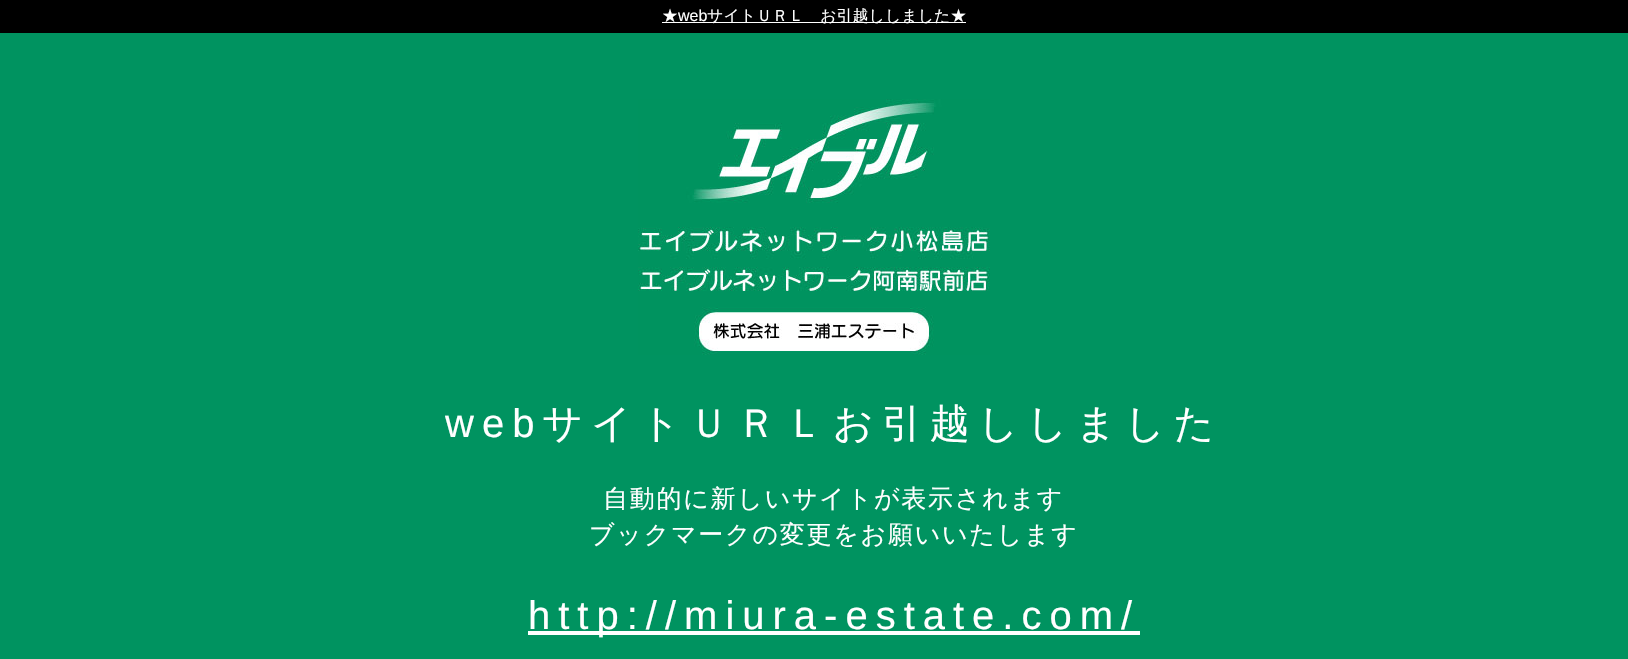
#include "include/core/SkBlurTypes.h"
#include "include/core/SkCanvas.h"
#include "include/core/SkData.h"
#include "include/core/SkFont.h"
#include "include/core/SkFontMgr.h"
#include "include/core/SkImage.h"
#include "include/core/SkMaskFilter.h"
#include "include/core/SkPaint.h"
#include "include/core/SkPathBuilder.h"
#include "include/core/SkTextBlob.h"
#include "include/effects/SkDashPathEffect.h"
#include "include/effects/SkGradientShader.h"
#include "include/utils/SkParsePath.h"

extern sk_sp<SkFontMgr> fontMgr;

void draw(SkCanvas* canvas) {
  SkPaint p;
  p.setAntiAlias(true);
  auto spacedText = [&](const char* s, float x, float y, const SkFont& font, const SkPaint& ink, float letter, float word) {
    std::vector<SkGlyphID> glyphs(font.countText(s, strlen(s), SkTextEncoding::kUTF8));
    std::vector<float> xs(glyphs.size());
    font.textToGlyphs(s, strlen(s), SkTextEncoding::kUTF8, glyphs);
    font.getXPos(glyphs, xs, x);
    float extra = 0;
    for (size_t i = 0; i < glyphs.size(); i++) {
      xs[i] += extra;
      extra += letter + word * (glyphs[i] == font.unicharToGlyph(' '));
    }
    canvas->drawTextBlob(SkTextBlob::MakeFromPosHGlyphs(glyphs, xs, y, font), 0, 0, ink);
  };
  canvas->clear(SkColorSetRGB(0, 147, 96));
  p.setColor(SK_ColorBLACK);
  canvas->drawRect(SkRect::MakeLTRB(0, 0, 1628, 33), p);
  p.setColor(SK_ColorWHITE);
  canvas->drawRect(SkRect::MakeLTRB(662, 22, 966, 23), p);
  canvas->drawImageRect(SkImages::DeferredFromEncodedData(SkData::MakeFromFileName("images/1.png")), SkRect::MakeLTRB(638, 99, 990, 355), SkSamplingOptions());
  canvas->drawRect(SkRect::MakeLTRB(528, 631, 1140, 635), p);
  SkFont font1(fontMgr->matchFamilyStyle("WenQuanYi Zen Hei", SkFontStyle(500, SkFontStyle::kNormal_Width, SkFontStyle::kUpright_Slant)), 16);
  font1.setSubpixel(true);
  canvas->drawString("★", 662, 21, font1, p);
  SkFont font2(fontMgr->matchFamilyStyle("Liberation Sans", SkFontStyle::Normal()), 16);
  font2.setSubpixel(true);
  canvas->drawString("web", 678, 21, font2, p);
  canvas->drawString("サイトＵＲＬ　お引越ししました★", 707, 21, font1, p);
  SkFont font3(fontMgr->matchFamilyStyle("Liberation Sans", SkFontStyle::Normal()), 40);
  font3.setSubpixel(true);
  spacedText("web", 445, 437, font3, p, 8, 0);
  SkFont font4(fontMgr->matchFamilyStyle("WenQuanYi Zen Hei", SkFontStyle(500, SkFontStyle::kNormal_Width, SkFontStyle::kUpright_Slant)), 40);
  font4.setSubpixel(true);
  spacedText("サイトＵＲＬお引越ししました", 542, 437, font4, p, 8, 0);
  SkFont font5(fontMgr->matchFamilyStyle("WenQuanYi Zen Hei", SkFontStyle(500, SkFontStyle::kNormal_Width, SkFontStyle::kUpright_Slant)), 25);
  font5.setSubpixel(true);
  spacedText("自動的に新しいサイトが表示されます", 603, 507, font5, p, 1.75f, 0);
  spacedText("ブックマークの変更をお願いいたします", 589, 543, font5, p, 1.75f, 0);
  spacedText("http://miura-estate.com/", 528, 629, font3, p, 8, 0);
}
